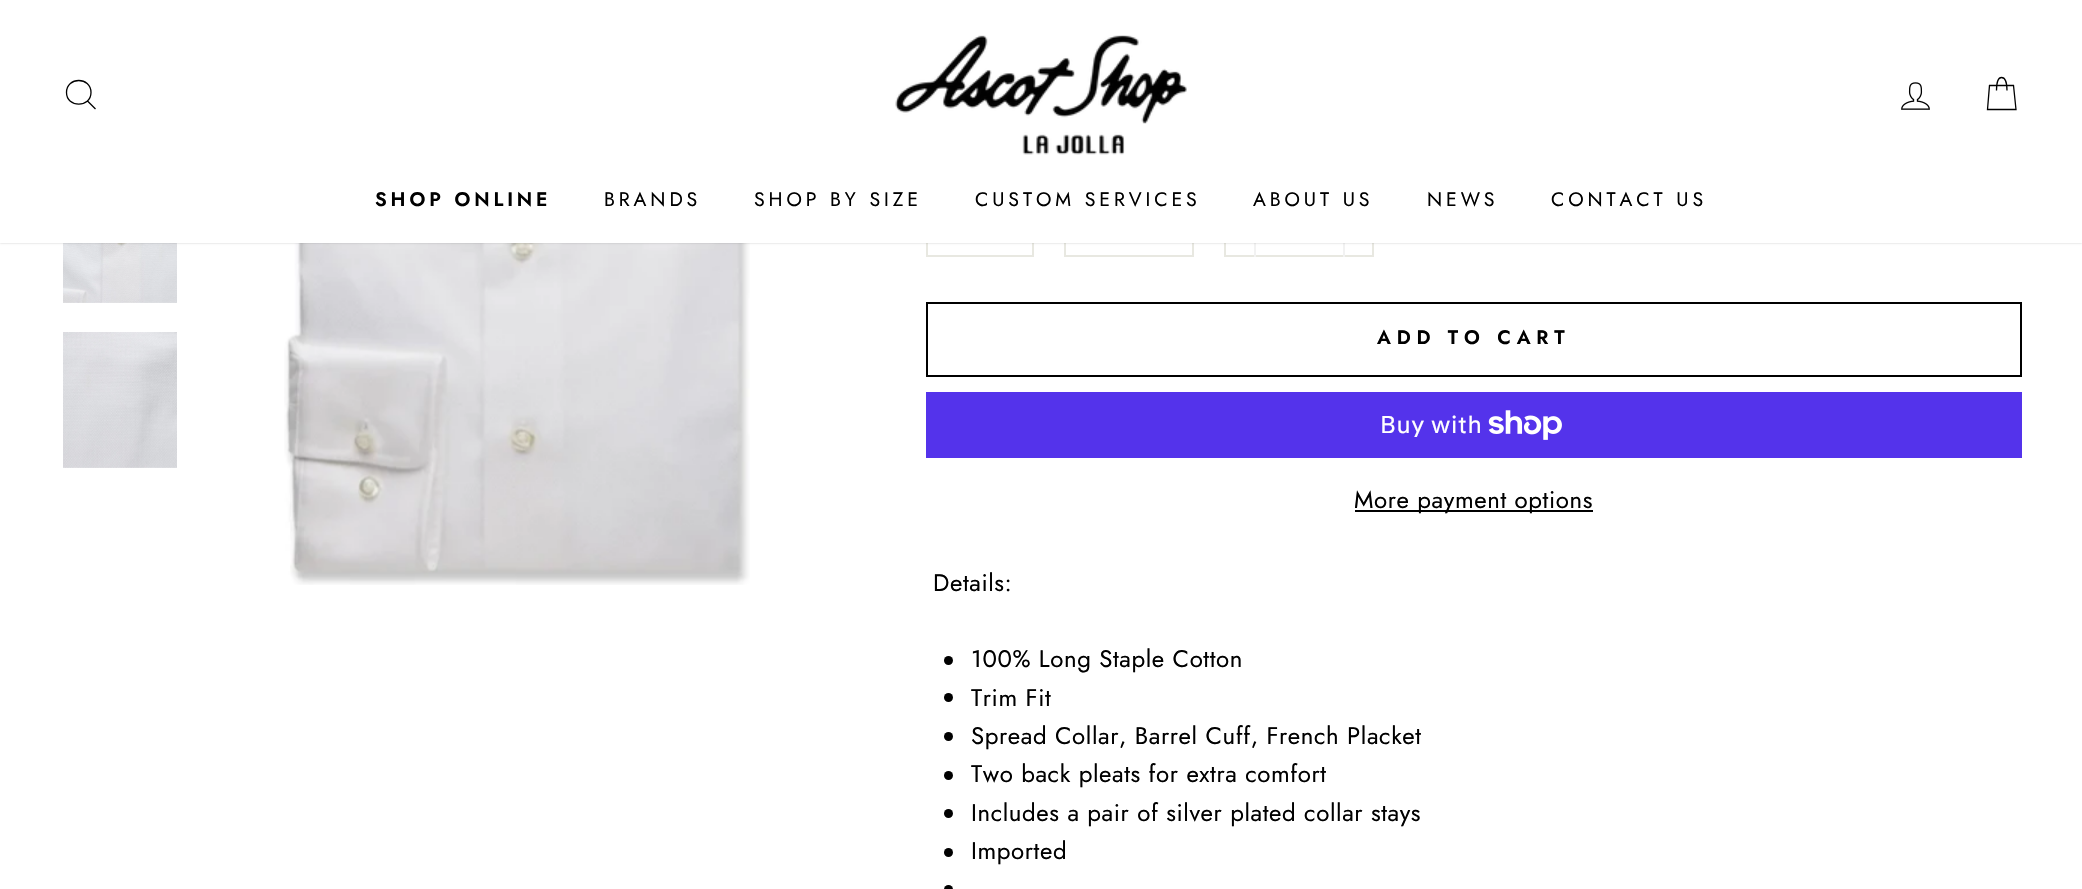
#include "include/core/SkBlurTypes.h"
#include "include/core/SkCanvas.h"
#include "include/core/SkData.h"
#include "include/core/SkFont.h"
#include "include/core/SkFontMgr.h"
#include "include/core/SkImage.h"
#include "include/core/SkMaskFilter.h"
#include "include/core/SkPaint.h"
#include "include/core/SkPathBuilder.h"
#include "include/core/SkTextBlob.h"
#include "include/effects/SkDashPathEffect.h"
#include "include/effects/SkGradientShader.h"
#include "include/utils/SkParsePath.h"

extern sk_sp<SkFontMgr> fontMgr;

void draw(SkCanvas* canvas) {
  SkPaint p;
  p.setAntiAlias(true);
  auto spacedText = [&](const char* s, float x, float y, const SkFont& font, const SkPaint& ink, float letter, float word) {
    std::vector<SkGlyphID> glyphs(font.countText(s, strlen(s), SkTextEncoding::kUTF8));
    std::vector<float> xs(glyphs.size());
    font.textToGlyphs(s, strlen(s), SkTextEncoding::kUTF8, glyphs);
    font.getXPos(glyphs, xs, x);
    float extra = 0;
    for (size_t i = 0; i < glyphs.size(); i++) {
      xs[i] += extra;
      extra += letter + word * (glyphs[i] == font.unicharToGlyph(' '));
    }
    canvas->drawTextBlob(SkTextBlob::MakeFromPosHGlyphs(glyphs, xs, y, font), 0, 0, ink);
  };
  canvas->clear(SK_ColorWHITE);
  canvas->drawImageRect(SkImages::DeferredFromEncodedData(SkData::MakeFromFileName("images/3.png")), SkRect::MakeLTRB(63, 243, 177, 303), SkSamplingOptions());
  canvas->drawImageRect(SkImages::DeferredFromEncodedData(SkData::MakeFromFileName("images/5.png")), SkRect::MakeLTRB(284, 243, 750, 585), SkSamplingOptions());
  p.setStyle(SkPaint::kStroke_Style);
  p.setStrokeWidth(2);
  p.setColor(SkColorSetRGB(232, 232, 225));
  canvas->drawRect(SkRect::MakeLTRB(927, 192, 1033, 256), p);
  canvas->drawRect(SkRect::MakeLTRB(1065, 192, 1193, 256), p);
  canvas->drawRect(SkRect::MakeLTRB(1225, 192, 1373, 256), p);
  p.setStyle(SkPaint::kFill_Style);
  p.setColor(SkColorSetRGB(242, 242, 242));
  canvas->drawRect(SkRect::MakeLTRB(1254, 243, 1256, 257), p);
  canvas->drawRect(SkRect::MakeLTRB(1343, 243, 1345, 257), p);
  p.setColor(SkColorSetARGB(51, 0, 0, 0));
  p.setMaskFilter(SkMaskFilter::MakeBlur(kNormal_SkBlurStyle, 1));
  canvas->drawRect(SkRect::MakeLTRB(0, 0, 2082, 243), p);
  p.setMaskFilter(nullptr);
  p.setColor(SK_ColorWHITE);
  canvas->drawRect(SkRect::MakeLTRB(0, 0, 2082, 243), p);
  p.setStyle(SkPaint::kStroke_Style);
  p.setStrokeWidth(1.3f);
  p.setColor(SK_ColorBLACK);
  canvas->drawPath(SkPathBuilder().moveTo(91, 92.5f).cubicTo(91, 108, 66.5f, 108, 66.5f, 92.5f).cubicTo(66.5f, 76.5f, 91, 76.5f, 91, 92.5f).close().moveTo(95.5f, 109).lineTo(87.5f, 101).detach(), p);
  canvas->drawImageRect(SkImages::DeferredFromEncodedData(SkData::MakeFromFileName("images/1.png")), SkRect::MakeLTRB(895, 35, 1187, 155), SkSamplingOptions());
  canvas->drawImageRect(SkImages::DeferredFromEncodedData(SkData::MakeFromFileName("images/2.png")), SkRect::MakeLTRB(1901, 82, 1930, 110), SkSamplingOptions());
  canvas->drawPath(SkPathBuilder().moveTo(1996.5f, 90.5f).cubicTo(1996.5f, 80, 1998.5f, 77.5f, 2001.5f, 77.5f).cubicTo(2004.5f, 77.5f, 2007, 80, 2007, 90.5f).moveTo(1989.5f, 85.5f).lineTo(2013.5f, 85.5f).lineTo(2016, 109.5f).lineTo(1987.5f, 109.5f).close().detach(), p);
  canvas->drawImageRect(SkImages::DeferredFromEncodedData(SkData::MakeFromFileName("images/4.png")), SkRect::MakeLTRB(63, 332, 177, 468), SkSamplingOptions());
  p.setStrokeWidth(2);
  canvas->drawRect(SkRect::MakeLTRB(927, 303, 2021, 376), p);
  p.setStyle(SkPaint::kFill_Style);
  p.setColor(SkColorSetRGB(84, 51, 235));
  canvas->drawRect(SkRect::MakeLTRB(926, 392, 2022, 458), p);
  canvas->drawImageRect(SkImages::DeferredFromEncodedData(SkData::MakeFromFileName("images/6.png")), SkRect::MakeLTRB(1488, 410, 1562, 440), SkSamplingOptions());
  p.setColor(SK_ColorBLACK);
  canvas->drawRect(SkRect::MakeLTRB(1355, 510, 1593, 512), p);
  canvas->drawCircle(948.5f, 660.5f, 4.5f, p);
  canvas->drawCircle(948.5f, 697.5f, 4.5f, p);
  canvas->drawCircle(948.5f, 736.5f, 4.5f, p);
  canvas->drawCircle(948.5f, 775.5f, 4.5f, p);
  canvas->drawCircle(948.5f, 813.5f, 4.5f, p);
  canvas->drawCircle(948.5f, 852.5f, 4.5f, p);
  canvas->drawCircle(948.5f, 889.5f, 4.5f, p);
  SkFont font1(fontMgr->matchFamilyStyle("Jost", SkFontStyle(600, SkFontStyle::kNormal_Width, SkFontStyle::kUpright_Slant)), 19.5f);
  font1.setSubpixel(true);
  spacedText("SHOP ONLINE", 375, 206, font1, p, 3.9f, 0);
  SkFont font2(fontMgr->matchFamilyStyle("Jost", SkFontStyle::Normal()), 19.5f);
  font2.setSubpixel(true);
  spacedText("BRANDS", 604, 206, font2, p, 3.9f, 0);
  spacedText("SHOP BY SIZE", 754, 206, font2, p, 3.9f, 0);
  spacedText("CUSTOM SERVICES", 975, 206, font2, p, 3.9f, 0);
  spacedText("ABOUT US", 1253, 206, font2, p, 3.9f, 0);
  spacedText("NEWS", 1427, 206, font2, p, 3.9f, 0);
  spacedText("CONTACT US", 1551, 206, font2, p, 3.9f, 0);
  spacedText("ADD TO CART", 1377, 344, font1, p, 5.8f, 0);
  SkFont font3(fontMgr->matchFamilyStyle("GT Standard", SkFontStyle::Normal()), 24);
  font3.setSubpixel(true);
  p.setColor(SK_ColorWHITE);
  spacedText("Buy with", 1380, 433, font3, p, 0.6f, 0);
  SkFont font4(fontMgr->matchFamilyStyle("Jost", SkFontStyle::Normal()), 24);
  font4.setSubpixel(true);
  p.setColor(SK_ColorBLACK);
  spacedText("More payment options", 1354, 508, font4, p, 0.6f, 0);
  spacedText("Details:", 933, 591, font4, p, 0.6f, 0);
  spacedText("100% Long Staple Cotton", 971, 667, font4, p, 0.6f, 0);
  spacedText("Trim Fit", 971, 706, font4, p, 0.6f, 0);
  spacedText("Spread Collar, Barrel Cuff, French Placket", 971, 744, font4, p, 0.6f, 0);
  spacedText("Two back pleats for extra comfort", 971, 782, font4, p, 0.6f, 0);
  spacedText("Includes a pair of silver plated collar stays", 971, 821, font4, p, 0.6f, 0);
  spacedText("Imported", 971, 859, font4, p, 0.6f, 0);
}
